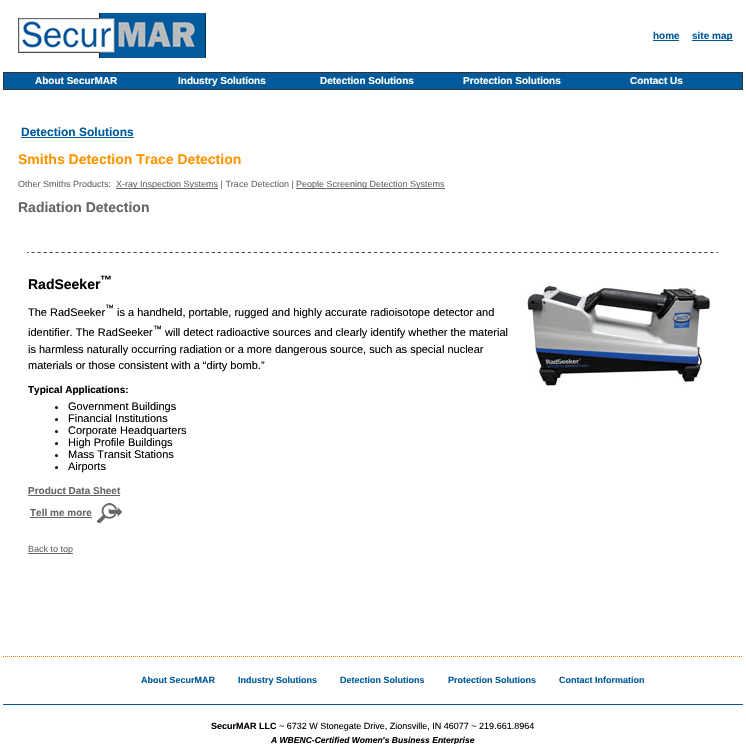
#include "include/core/SkBlurTypes.h"
#include "include/core/SkCanvas.h"
#include "include/core/SkData.h"
#include "include/core/SkFont.h"
#include "include/core/SkFontMgr.h"
#include "include/core/SkImage.h"
#include "include/core/SkMaskFilter.h"
#include "include/core/SkPaint.h"
#include "include/core/SkPathBuilder.h"
#include "include/core/SkTextBlob.h"
#include "include/effects/SkDashPathEffect.h"
#include "include/effects/SkGradientShader.h"
#include "include/utils/SkParsePath.h"

extern sk_sp<SkFontMgr> fontMgr;

void draw(SkCanvas* canvas) {
  SkPaint p;
  p.setAntiAlias(true);
  canvas->clear(SK_ColorWHITE);
  canvas->drawImageRect(SkImages::DeferredFromEncodedData(SkData::MakeFromFileName("images/1.png")), SkRect::MakeLTRB(18, 13, 206, 58), SkSamplingOptions());
  p.setColor(SkColorSetRGB(0, 90, 156));
  canvas->drawRect(SkRect::MakeLTRB(653, 40, 679, 41), p);
  canvas->drawRect(SkRect::MakeLTRB(692, 40, 733, 41), p);
  canvas->drawRect(SkRect::MakeLTRB(3.5f, 72.5f, 742.5f, 89.5f), p);
  p.setStyle(SkPaint::kStroke_Style);
  p.setStrokeWidth(1);
  p.setColor(SkColorSetRGB(51, 51, 51));
  canvas->drawRect(SkRect::MakeLTRB(3.5f, 72.5f, 742.5f, 89.5f), p);
  p.setStyle(SkPaint::kFill_Style);
  p.setColor(SkColorSetRGB(0, 90, 156));
  canvas->drawRect(SkRect::MakeLTRB(21, 137, 134, 138), p);
  p.setColor(SkColorSetRGB(102, 102, 102));
  canvas->drawRect(SkRect::MakeLTRB(116, 188, 218, 189), p);
  canvas->drawRect(SkRect::MakeLTRB(296, 188, 445, 189), p);
  canvas->drawImageRect(SkImages::DeferredFromEncodedData(SkData::MakeFromFileName("images/2.png")), SkRect::MakeLTRB(27, 252, 718, 253), SkSamplingOptions());
  canvas->drawImageRect(SkImages::DeferredFromEncodedData(SkData::MakeFromFileName("images/3.png")), SkRect::MakeLTRB(526, 282, 710, 392), SkSamplingOptions());
  p.setColor(SK_ColorBLACK);
  canvas->drawCircle(56.5f, 407.5f, 1.5f, p);
  canvas->drawCircle(56.5f, 419.5f, 1.5f, p);
  canvas->drawCircle(56.5f, 431.5f, 1.5f, p);
  canvas->drawCircle(56.5f, 443.5f, 1.5f, p);
  canvas->drawCircle(56.5f, 455.5f, 1.5f, p);
  canvas->drawCircle(56.5f, 467.5f, 1.5f, p);
  p.setColor(SkColorSetRGB(102, 102, 102));
  canvas->drawRect(SkRect::MakeLTRB(28, 495, 120, 496), p);
  canvas->drawRect(SkRect::MakeLTRB(30, 517, 92, 518), p);
  canvas->drawImageRect(SkImages::DeferredFromEncodedData(SkData::MakeFromFileName("images/4.png")), SkRect::MakeLTRB(97, 503, 122, 523), SkSamplingOptions());
  canvas->drawRect(SkRect::MakeLTRB(28, 553, 73, 554), p);
  p.setStyle(SkPaint::kStroke_Style);
  p.setColor(SkColorSetRGB(232, 135, 0));
  p.setPathEffect(SkDashPathEffect::Make({{1, 1}}, 0));
  canvas->drawPath(SkPathBuilder().moveTo(3, 656.5f).lineTo(743, 656.5f).detach(), p);
  p.setPathEffect(nullptr);
  p.setStyle(SkPaint::kFill_Style);
  p.setColor(SkColorSetRGB(0, 90, 156));
  canvas->drawRect(SkRect::MakeLTRB(3, 704, 743, 705), p);
  SkFont font1(fontMgr->matchFamilyStyle("Liberation Sans", SkFontStyle::Bold()), 10);
  font1.setSubpixel(true);
  canvas->drawString("home", 653, 39, font1, p);
  canvas->drawString("site map", 692, 39, font1, p);
  p.setColor(SK_ColorWHITE);
  canvas->drawString("About SecurMAR", 35, 84, font1, p);
  canvas->drawString("Industry Solutions", 178, 84, font1, p);
  canvas->drawString("Detection Solutions", 320, 84, font1, p);
  canvas->drawString("Protection Solutions", 463, 84, font1, p);
  canvas->drawString("Contact Us", 630, 84, font1, p);
  SkFont font2(fontMgr->matchFamilyStyle("Liberation Sans", SkFontStyle::Bold()), 12);
  font2.setSubpixel(true);
  p.setColor(SkColorSetRGB(0, 90, 156));
  canvas->drawString("Detection Solutions", 21, 136, font2, p);
  SkFont font3(fontMgr->matchFamilyStyle("Liberation Sans", SkFontStyle::Bold()), 14);
  font3.setSubpixel(true);
  p.setColor(SkColorSetRGB(255, 148, 0));
  canvas->drawString("Smiths Detection Trace Detection", 18, 164, font3, p);
  SkFont font4(fontMgr->matchFamilyStyle("Liberation Sans", SkFontStyle::Normal()), 9);
  font4.setSubpixel(true);
  p.setColor(SkColorSetRGB(102, 102, 102));
  canvas->drawString("Other Smiths Products:", 18, 187, font4, p);
  canvas->drawString("X-ray Inspection Systems | Trace Detection |", 116, 187, font4, p);
  canvas->drawString("People Screening Detection Systems", 296, 187, font4, p);
  canvas->drawString("Radiation Detection", 18, 212, font3, p);
  p.setColor(SK_ColorBLACK);
  canvas->drawString("RadSeeker", 28, 289, font3, p);
  canvas->drawString("™", 100, 284, font2, p);
  canvas->drawString("™", 105, 311, font4, p);
  SkFont font5(fontMgr->matchFamilyStyle("Liberation Sans", SkFontStyle::Normal()), 11);
  font5.setSubpixel(true);
  canvas->drawString("The RadSeeker", 28, 316, font5, p);
  canvas->drawString("is a handheld, portable, rugged and highly accurate radioisotope detector and", 117, 316, font5, p);
  canvas->drawString("™", 153, 332, font4, p);
  canvas->drawString("identifier. The RadSeeker", 28, 336, font5, p);
  canvas->drawString("will detect radioactive sources and clearly identify whether the material", 165, 336, font5, p);
  canvas->drawString("is harmless naturally occurring radiation or a more dangerous source, such as special nuclear", 28, 353, font5, p);
  canvas->drawString("materials or those consistent with a “dirty bomb.”", 28, 369, font5, p);
  canvas->drawString("Typical Applications:", 28, 393, font1, p);
  canvas->drawString("Government Buildings", 68, 410, font5, p);
  canvas->drawString("Financial Institutions", 68, 422, font5, p);
  canvas->drawString("Corporate Headquarters", 68, 434, font5, p);
  canvas->drawString("High Profile Buildings", 68, 446, font5, p);
  canvas->drawString("Mass Transit Stations", 68, 458, font5, p);
  canvas->drawString("Airports", 68, 470, font5, p);
  p.setColor(SkColorSetRGB(102, 102, 102));
  canvas->drawString("Product Data Sheet", 28, 494, font1, p);
  canvas->drawString("Tell me more", 30, 516, font1, p);
  canvas->drawString("Back to top", 28, 552, font4, p);
  SkFont font6(fontMgr->matchFamilyStyle("Liberation Sans", SkFontStyle::Bold()), 9);
  font6.setSubpixel(true);
  p.setColor(SkColorSetRGB(0, 90, 156));
  canvas->drawString("About SecurMAR", 141, 683, font6, p);
  canvas->drawString("Industry Solutions", 238, 683, font6, p);
  canvas->drawString("Detection Solutions", 340, 683, font6, p);
  canvas->drawString("Protection Solutions", 448, 683, font6, p);
  canvas->drawString("Contact Information", 559, 683, font6, p);
  p.setColor(SK_ColorBLACK);
  canvas->drawString("SecurMAR LLC", 211, 729, font6, p);
  canvas->drawString("~ 6732 W Stonegate Drive, Zionsville, IN 46077 ~ 219.661.8964", 279, 729, font4, p);
  SkFont font7(fontMgr->matchFamilyStyle("Liberation Sans", SkFontStyle::BoldItalic()), 8.55f);
  font7.setSubpixel(true);
  canvas->drawString("A WBENC-Certified Women's Business Enterprise", 271, 743, font7, p);
}
